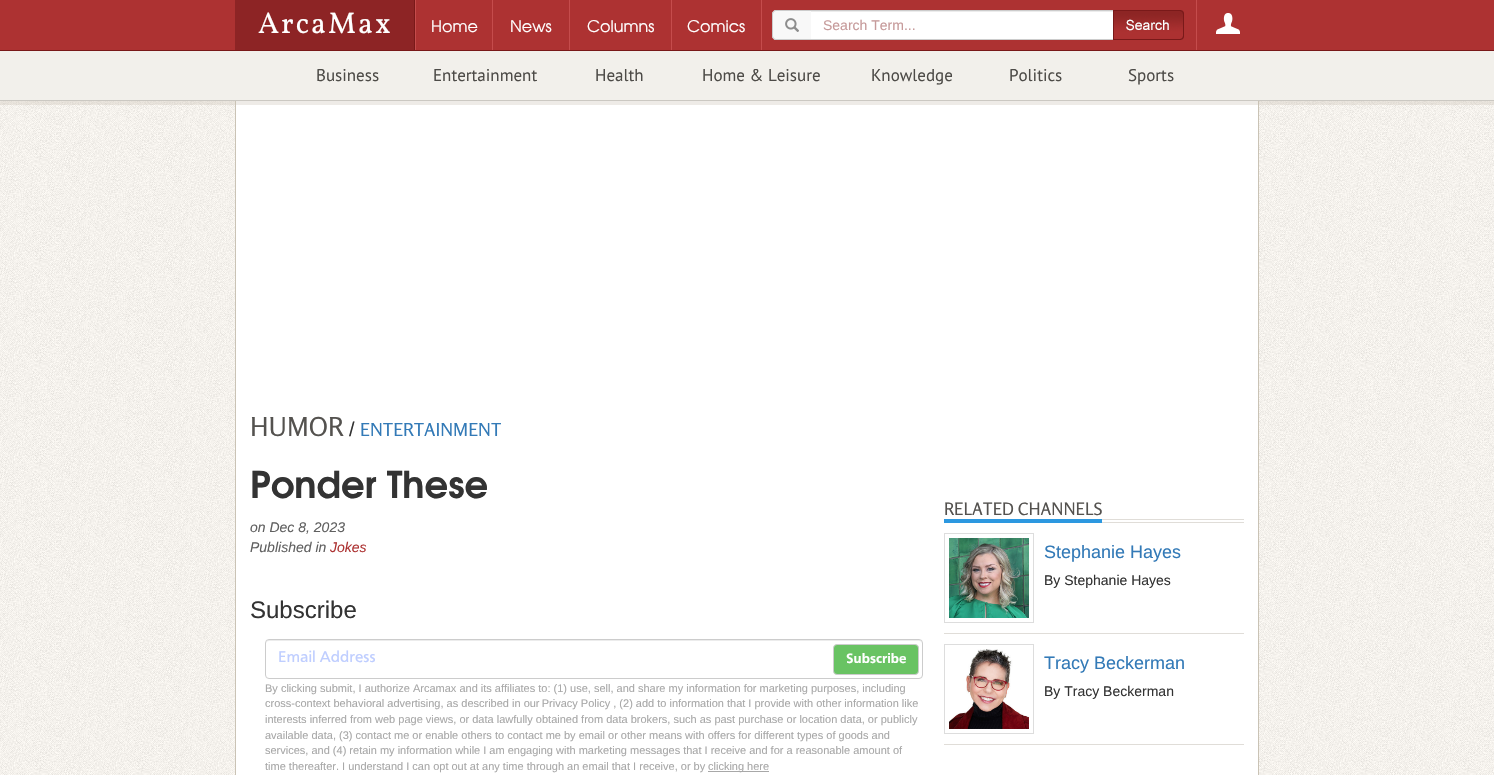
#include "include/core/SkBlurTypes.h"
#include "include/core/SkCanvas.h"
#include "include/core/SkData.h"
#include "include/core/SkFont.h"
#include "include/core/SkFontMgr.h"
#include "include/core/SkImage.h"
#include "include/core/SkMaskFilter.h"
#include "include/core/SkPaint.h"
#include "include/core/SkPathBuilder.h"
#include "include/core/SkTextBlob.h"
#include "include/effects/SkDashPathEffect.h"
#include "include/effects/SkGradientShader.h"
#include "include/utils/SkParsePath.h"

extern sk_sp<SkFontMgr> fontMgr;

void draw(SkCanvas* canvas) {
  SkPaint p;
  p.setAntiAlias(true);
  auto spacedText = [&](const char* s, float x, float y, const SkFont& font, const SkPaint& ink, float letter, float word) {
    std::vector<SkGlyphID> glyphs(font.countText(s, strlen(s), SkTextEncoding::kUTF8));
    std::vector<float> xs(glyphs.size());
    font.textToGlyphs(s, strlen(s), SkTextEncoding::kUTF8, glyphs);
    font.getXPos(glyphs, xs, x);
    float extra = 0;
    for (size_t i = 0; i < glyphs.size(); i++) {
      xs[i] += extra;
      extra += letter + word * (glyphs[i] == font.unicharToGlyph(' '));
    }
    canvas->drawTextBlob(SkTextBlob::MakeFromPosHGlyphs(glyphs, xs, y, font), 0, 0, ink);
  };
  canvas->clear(SK_ColorWHITE);
  canvas->drawImageRect(SkImages::DeferredFromEncodedData(SkData::MakeFromFileName("images/1.png")), SkRect::MakeLTRB(0, 101, 1494, 775), SkSamplingOptions());
  p.setColor(SK_ColorWHITE);
  canvas->drawRect(SkRect::MakeLTRB(235.5f, 100.5f, 1258.5f, 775.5f), p);
  p.setStyle(SkPaint::kStroke_Style);
  p.setStrokeWidth(1);
  p.setColor(SkColorSetRGB(202, 195, 181));
  canvas->drawRect(SkRect::MakeLTRB(235.5f, 100.5f, 1258.5f, 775.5f), p);
  p.setStrokeWidth(4);
  p.setColor(SkColorSetARGB(84, 202, 195, 181));
  canvas->drawRect(SkRect::MakeLTRB(-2, -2, 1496, 103), p);
  p.setStyle(SkPaint::kFill_Style);
  p.setColor(SkColorSetRGB(173, 50, 50));
  canvas->drawRect(SkRect::MakeLTRB(0, 0, 1494, 50), p);
  p.setColor(SkColorSetRGB(141, 36, 37));
  canvas->drawRect(SkRect::MakeLTRB(235, 0, 414, 50), p);
  p.setColor(SkColorSetRGB(121, 25, 25));
  canvas->drawRect(SkRect::MakeLTRB(414, 0, 415, 50), p);
  p.setColor(SkColorSetRGB(197, 76, 76));
  canvas->drawRect(SkRect::MakeLTRB(415, 0, 416, 50), p);
  canvas->drawRect(SkRect::MakeLTRB(492, 0, 493, 50), p);
  canvas->drawRect(SkRect::MakeLTRB(569, 0, 570, 50), p);
  canvas->drawRect(SkRect::MakeLTRB(671, 0, 672, 50), p);
  canvas->drawRect(SkRect::MakeLTRB(761, 0, 762, 50), p);
  p.setColor(SkColorSetRGB(248, 248, 248));
  canvas->drawPath(SkPathBuilder().moveTo(776, 10).lineTo(811, 10).lineTo(811, 40).lineTo(776, 40).cubicTo(774, 40, 772, 38, 772, 36).lineTo(772, 14).cubicTo(772, 12, 774, 10, 776, 10).close().detach(), p);
  p.setColor(SkColorSetRGB(204, 204, 204));
  canvas->drawPath(SkPathBuilder(SkPathFillType::kEvenOdd).moveTo(776, 10).lineTo(811, 10).lineTo(811, 40).lineTo(776, 40).cubicTo(774, 40, 772, 38, 772, 36).lineTo(772, 14).cubicTo(772, 12, 774, 10, 776, 10).close().moveTo(776, 11).lineTo(811, 11).lineTo(811, 39).lineTo(776, 39).cubicTo(774.5f, 39, 773, 37.5f, 773, 36).lineTo(773, 14).cubicTo(773, 12.5f, 774.5f, 11, 776, 11).close().detach(), p);
  canvas->drawImageRect(SkImages::DeferredFromEncodedData(SkData::MakeFromFileName("images/2.png")), SkRect::MakeLTRB(785, 18, 799, 32), SkSamplingOptions());
  p.setColor(SK_ColorWHITE);
  canvas->drawRect(SkRect::MakeLTRB(811, 12, 1113, 39), p);
  p.setColor(SkColorSetRGB(236, 236, 236));
  canvas->drawPath(SkPathBuilder().moveTo(811, 12).lineTo(1172, 12).cubicTo(1174, 12, 1175, 13, 1175, 15).lineTo(1175, 14).cubicTo(1175, 12, 1174, 11, 1172, 11).lineTo(811, 11).close().detach(), p);
  p.setColor(SkColorSetRGB(204, 204, 204));
  canvas->drawPath(SkPathBuilder(SkPathFillType::kEvenOdd).moveTo(811, 10).lineTo(1172, 10).cubicTo(1174, 10, 1176, 12, 1176, 14).lineTo(1176, 36).cubicTo(1176, 38, 1174, 40, 1172, 40).lineTo(811, 40).close().moveTo(811, 11).lineTo(1172, 11).cubicTo(1174, 11, 1175, 12, 1175, 14).lineTo(1175, 36).cubicTo(1175, 38, 1174, 39, 1172, 39).lineTo(811, 39).close().detach(), p);
  canvas->drawImageRect(SkImages::DeferredFromEncodedData(SkData::MakeFromFileName("images/3.png")), SkRect::MakeLTRB(1113, 10, 1184, 40), SkSamplingOptions());
  canvas->drawImageRect(SkImages::DeferredFromEncodedData(SkData::MakeFromFileName("images/4.png")), SkRect::MakeLTRB(1216, 13, 1240, 34), SkSamplingOptions());
  p.setColor(SkColorSetRGB(197, 76, 76));
  canvas->drawRect(SkRect::MakeLTRB(1196, 0, 1197, 50), p);
  p.setColor(SkColorSetRGB(242, 240, 235));
  canvas->drawRect(SkRect::MakeLTRB(0, 51, 1494, 100), p);
  p.setColor(SkColorSetRGB(121, 25, 25));
  canvas->drawRect(SkRect::MakeLTRB(0, 50, 1494, 51), p);
  p.setColor(SkColorSetRGB(203, 200, 194));
  canvas->drawRect(SkRect::MakeLTRB(0, 100, 1494, 101), p);
  p.setColor(SkColorSetRGB(236, 236, 236));
  canvas->drawPath(SkPathBuilder().moveTo(269, 641).lineTo(919, 641).cubicTo(921, 641, 922, 642, 922, 644).cubicTo(922, 642, 921, 640, 919, 640).lineTo(269, 640).cubicTo(267, 640, 266, 642, 266, 644).cubicTo(266, 642, 267, 641, 269, 641).close().detach(), p);
  p.setStyle(SkPaint::kStroke_Style);
  p.setStrokeWidth(1);
  p.setColor(SkColorSetRGB(204, 204, 204));
  canvas->drawRoundRect(SkRect::MakeLTRB(265.5f, 639.5f, 922.5f, 678.5f), 3.5f, 3.5f, p);
  p.setStyle(SkPaint::kFill_Style);
  p.setColor(SkColorSetRGB(105, 195, 99));
  canvas->drawRoundRect(SkRect::MakeLTRB(833.5f, 644.5f, 918.5f, 674.5f), 3.5f, 3.5f, p);
  p.setStyle(SkPaint::kStroke_Style);
  p.setColor(SkColorSetRGB(204, 204, 204));
  canvas->drawRoundRect(SkRect::MakeLTRB(833.5f, 644.5f, 918.5f, 674.5f), 3.5f, 3.5f, p);
  p.setStyle(SkPaint::kFill_Style);
  p.setColor(SkColorSetRGB(168, 168, 168));
  canvas->drawRect(SkRect::MakeLTRB(708, 771, 769, 772), p);
  p.setColor(SkColorSetRGB(224, 221, 216));
  canvas->drawRect(SkRect::MakeLTRB(1102, 522, 1244, 523), p);
  canvas->drawRect(SkRect::MakeLTRB(1102, 519, 1244, 520), p);
  p.setColor(SkColorSetRGB(44, 152, 224));
  canvas->drawRect(SkRect::MakeLTRB(944, 519, 1102, 523), p);
  p.setColor(SkColorSetRGB(224, 221, 216));
  canvas->drawRect(SkRect::MakeLTRB(944, 633, 1244, 634), p);
  p.setStyle(SkPaint::kStroke_Style);
  p.setColor(SkColorSetRGB(221, 221, 221));
  canvas->drawRect(SkRect::MakeLTRB(944.5f, 533.5f, 1033.5f, 622.5f), p);
  canvas->drawImageRect(SkImages::DeferredFromEncodedData(SkData::MakeFromFileName("images/5.png")), SkRect::MakeLTRB(949, 538, 1029, 618), SkSamplingOptions());
  p.setStyle(SkPaint::kFill_Style);
  p.setColor(SkColorSetRGB(224, 221, 216));
  canvas->drawRect(SkRect::MakeLTRB(944, 744, 1244, 745), p);
  p.setStyle(SkPaint::kStroke_Style);
  p.setColor(SkColorSetRGB(221, 221, 221));
  canvas->drawRect(SkRect::MakeLTRB(944.5f, 644.5f, 1033.5f, 733.5f), p);
  canvas->drawImageRect(SkImages::DeferredFromEncodedData(SkData::MakeFromFileName("images/6.png")), SkRect::MakeLTRB(949, 649, 1029, 729), SkSamplingOptions());
  SkFont font1(fontMgr->matchFamilyStyle("Vollkorn", SkFontStyle::Normal()), 30);
  font1.setSubpixel(true);
  p.setStyle(SkPaint::kFill_Style);
  p.setColor(SK_ColorWHITE);
  spacedText("ArcaMax", 258, 33, font1, p, 2, 0);
  SkFont font2(fontMgr->matchFamilyStyle("TeX Gyre Adventor", SkFontStyle::Normal()), 16);
  font2.setSubpixel(true);
  canvas->drawString("Home", 431, 32, font2, p);
  canvas->drawString("News", 510, 32, font2, p);
  canvas->drawString("Columns", 587, 32, font2, p);
  canvas->drawString("Comics", 687, 32, font2, p);
  SkFont font3(fontMgr->matchFamilyStyle("Liberation Sans", SkFontStyle::Normal()), 14);
  font3.setSubpixel(true);
  p.setColor(SkColorSetRGB(198, 154, 154));
  canvas->drawString("Search Term...", 823, 30, font3, p);
  SkFont font4(fontMgr->matchFamilyStyle("PT Sans", SkFontStyle::Normal()), 17);
  font4.setSubpixel(true);
  p.setColor(SkColorSetRGB(77, 75, 71));
  canvas->drawString("Business", 316, 81, font4, p);
  canvas->drawString("Entertainment", 433, 81, font4, p);
  canvas->drawString("Health", 595, 81, font4, p);
  canvas->drawString("Home & Leisure", 702, 81, font4, p);
  canvas->drawString("Knowledge", 871, 81, font4, p);
  canvas->drawString("Politics", 1009, 81, font4, p);
  canvas->drawString("Sports", 1128, 81, font4, p);
  SkFont font5(fontMgr->matchFamilyStyle("Rosario", SkFontStyle::Normal()), 26);
  font5.setSubpixel(true);
  p.setColor(SkColorSetRGB(84, 82, 79));
  canvas->drawString("HUMOR", 250, 436, font5, p);
  SkFont font6(fontMgr->matchFamilyStyle("Liberation Sans", SkFontStyle::Normal()), 20);
  font6.setSubpixel(true);
  p.setColor(SkColorSetRGB(51, 51, 51));
  canvas->drawString("/", 349, 436, font6, p);
  SkFont font7(fontMgr->matchFamilyStyle("Rosario", SkFontStyle::Normal()), 18);
  font7.setSubpixel(true);
  p.setColor(SkColorSetRGB(51, 122, 183));
  canvas->drawString("ENTERTAINMENT", 360, 436, font7, p);
  SkFont font8(fontMgr->matchFamilyStyle("TeX Gyre Adventor", SkFontStyle::Bold()), 37);
  font8.setSubpixel(true);
  p.setColor(SkColorSetRGB(51, 51, 51));
  canvas->drawString("Ponder These", 250, 498, font8, p);
  SkFont font9(fontMgr->matchFamilyStyle("Liberation Sans", SkFontStyle::Italic()), 14);
  font9.setSubpixel(true);
  p.setColor(SkColorSetRGB(96, 96, 96));
  canvas->drawString("on Dec 8, 2023", 250, 532, font9, p);
  canvas->drawString("Published in", 250, 552, font9, p);
  p.setColor(SkColorSetRGB(173, 50, 50));
  canvas->drawString("Jokes", 330, 552, font9, p);
  SkFont font10(fontMgr->matchFamilyStyle("Liberation Sans", SkFontStyle::Normal()), 24);
  font10.setSubpixel(true);
  p.setColor(SkColorSetRGB(51, 51, 51));
  canvas->drawString("Subscribe", 250, 618, font10, p);
  SkFont font11(fontMgr->matchFamilyStyle("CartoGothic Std", SkFontStyle::Normal()), 16);
  font11.setSubpixel(true);
  p.setColor(SkColorSetRGB(191, 206, 255));
  canvas->drawString("Email Address", 278, 662, font11, p);
  SkFont font12(fontMgr->matchFamilyStyle("CartoGothic Std", SkFontStyle::Bold()), 14);
  font12.setSubpixel(true);
  p.setColor(SK_ColorWHITE);
  canvas->drawString("Subscribe", 846, 663, font12, p);
  SkFont font13(fontMgr->matchFamilyStyle("Liberation Sans", SkFontStyle::Normal()), 11);
  font13.setSubpixel(true);
  p.setColor(SkColorSetRGB(168, 168, 168));
  canvas->drawString("By clicking submit, I authorize Arcamax and its affiliates to: (1) use, sell, and share my information for marketing purposes, including", 265, 692, font13, p);
  canvas->drawString("cross-context behavioral advertising, as described in our Privacy Policy , (2) add to information that I provide with other information like", 265, 707, font13, p);
  canvas->drawString("interests inferred from web page views, or data lawfully obtained from data brokers, such as past purchase or location data, or publicly", 265, 723, font13, p);
  canvas->drawString("available data, (3) contact me or enable others to contact me by email or other means with offers for different types of goods and", 265, 739, font13, p);
  canvas->drawString("services, and (4) retain my information while I am engaging with marketing messages that I receive and for a reasonable amount of", 265, 754, font13, p);
  canvas->drawString("time thereafter. I understand I can opt out at any time through an email that I receive, or by", 265, 770, font13, p);
  canvas->drawString("clicking here", 708, 770, font13, p);
  SkFont font14(fontMgr->matchFamilyStyle("Rosario", SkFontStyle::Normal()), 17);
  font14.setSubpixel(true);
  p.setColor(SkColorSetRGB(84, 82, 79));
  canvas->drawString("RELATED CHANNELS", 944, 515, font14, p);
  SkFont font15(fontMgr->matchFamilyStyle("Liberation Sans", SkFontStyle::Normal()), 18);
  font15.setSubpixel(true);
  p.setColor(SkColorSetRGB(51, 122, 183));
  canvas->drawString("Stephanie Hayes", 1044, 558, font15, p);
  p.setColor(SkColorSetRGB(51, 51, 51));
  canvas->drawString("By Stephanie Hayes", 1044, 585, font3, p);
  p.setColor(SkColorSetRGB(51, 122, 183));
  canvas->drawString("Tracy Beckerman", 1044, 669, font15, p);
  p.setColor(SkColorSetRGB(51, 51, 51));
  canvas->drawString("By Tracy Beckerman", 1044, 696, font3, p);
}
